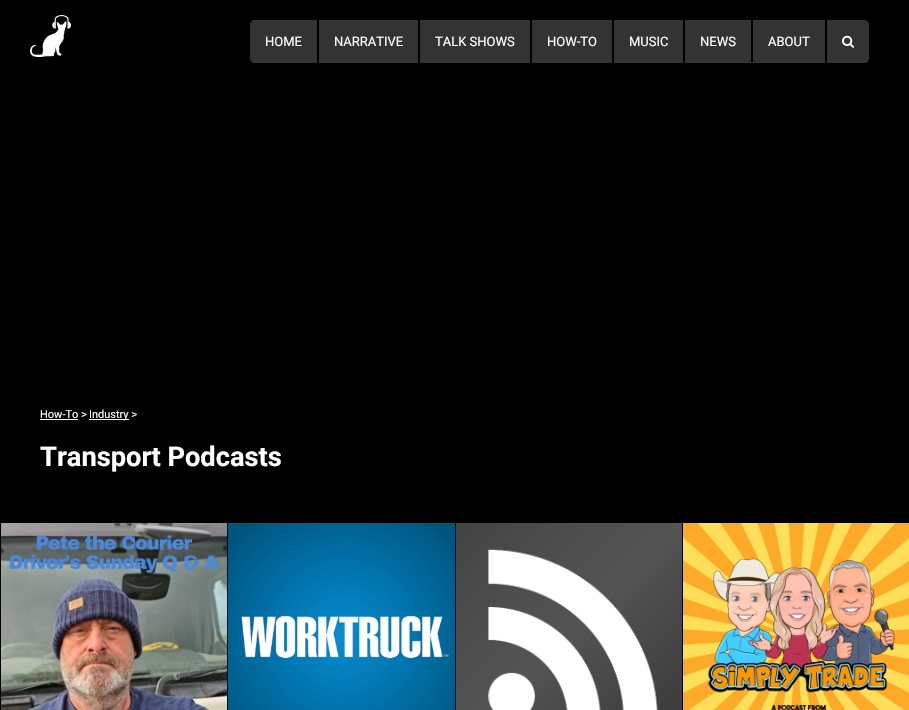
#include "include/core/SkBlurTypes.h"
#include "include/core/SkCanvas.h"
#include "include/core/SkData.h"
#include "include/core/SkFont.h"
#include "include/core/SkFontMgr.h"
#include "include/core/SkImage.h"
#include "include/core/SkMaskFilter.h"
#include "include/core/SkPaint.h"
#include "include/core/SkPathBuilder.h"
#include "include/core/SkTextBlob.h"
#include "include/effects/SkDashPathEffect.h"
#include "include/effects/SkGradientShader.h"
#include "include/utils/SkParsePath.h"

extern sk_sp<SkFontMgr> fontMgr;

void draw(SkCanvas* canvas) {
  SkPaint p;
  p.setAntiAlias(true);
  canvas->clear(SK_ColorBLACK);
  canvas->drawImageRect(SkImages::DeferredFromEncodedData(SkData::MakeFromFileName("images/1.png")), SkRect::MakeLTRB(30, 15, 71, 57), SkSamplingOptions());
  p.setColor(SkColorSetRGB(51, 51, 51));
  canvas->drawPath(SkPathBuilder().moveTo(255, 20).lineTo(317, 20).lineTo(317, 63).lineTo(255, 63).cubicTo(252, 63, 250, 61, 250, 58).lineTo(250, 25).cubicTo(250, 22, 252, 20, 255, 20).close().detach(), p);
  canvas->drawRect(SkRect::MakeLTRB(319, 20, 418, 63), p);
  canvas->drawRect(SkRect::MakeLTRB(420, 20, 530, 63), p);
  canvas->drawRect(SkRect::MakeLTRB(532, 20, 612, 63), p);
  canvas->drawRect(SkRect::MakeLTRB(614, 20, 683, 63), p);
  canvas->drawRect(SkRect::MakeLTRB(685, 20, 751, 63), p);
  canvas->drawRect(SkRect::MakeLTRB(753, 20, 825, 63), p);
  canvas->drawPath(SkPathBuilder().moveTo(827, 20).lineTo(864, 20).cubicTo(867, 20, 869, 22, 869, 25).lineTo(869, 58).cubicTo(869, 61, 867, 63, 864, 63).lineTo(827, 63).close().detach(), p);
  canvas->drawImageRect(SkImages::DeferredFromEncodedData(SkData::MakeFromFileName("images/2.png")), SkRect::MakeLTRB(842, 35, 854, 48), SkSamplingOptions());
  p.setColor(SK_ColorWHITE);
  canvas->drawRect(SkRect::MakeLTRB(40, 419, 78, 420), p);
  canvas->drawRect(SkRect::MakeLTRB(89, 419, 129, 420), p);
  canvas->drawImageRect(SkImages::DeferredFromEncodedData(SkData::MakeFromFileName("images/3.png")), SkRect::MakeLTRB(1, 523, 227, 710), SkSamplingOptions());
  canvas->drawImageRect(SkImages::DeferredFromEncodedData(SkData::MakeFromFileName("images/4.png")), SkRect::MakeLTRB(228, 523, 455, 710), SkSamplingOptions());
  canvas->drawImageRect(SkImages::DeferredFromEncodedData(SkData::MakeFromFileName("images/5.png")), SkRect::MakeLTRB(456, 523, 682, 710), SkSamplingOptions());
  canvas->drawImageRect(SkImages::DeferredFromEncodedData(SkData::MakeFromFileName("images/6.png")), SkRect::MakeLTRB(683, 523, 909, 710), SkSamplingOptions());
  SkFont font1(fontMgr->matchFamilyStyle("Roboto", SkFontStyle::Normal()), 13);
  font1.setSubpixel(true);
  canvas->drawString("HOME", 265, 46, font1, p);
  canvas->drawString("NARRATIVE", 334, 46, font1, p);
  canvas->drawString("TALK SHOWS", 435, 46, font1, p);
  canvas->drawString("HOW-TO", 547, 46, font1, p);
  canvas->drawString("MUSIC", 629, 46, font1, p);
  canvas->drawString("NEWS", 700, 46, font1, p);
  canvas->drawString("ABOUT", 768, 46, font1, p);
  SkFont font2(fontMgr->matchFamilyStyle("Roboto", SkFontStyle::Normal()), 11);
  font2.setSubpixel(true);
  canvas->drawString("How-To >", 40, 418, font2, p);
  canvas->drawString("Industry >", 89, 418, font2, p);
  SkFont font3(fontMgr->matchFamilyStyle("Roboto", SkFontStyle::Bold()), 27.25f);
  font3.setSubpixel(true);
  canvas->drawString("Transport Podcasts", 40, 466, font3, p);
}
